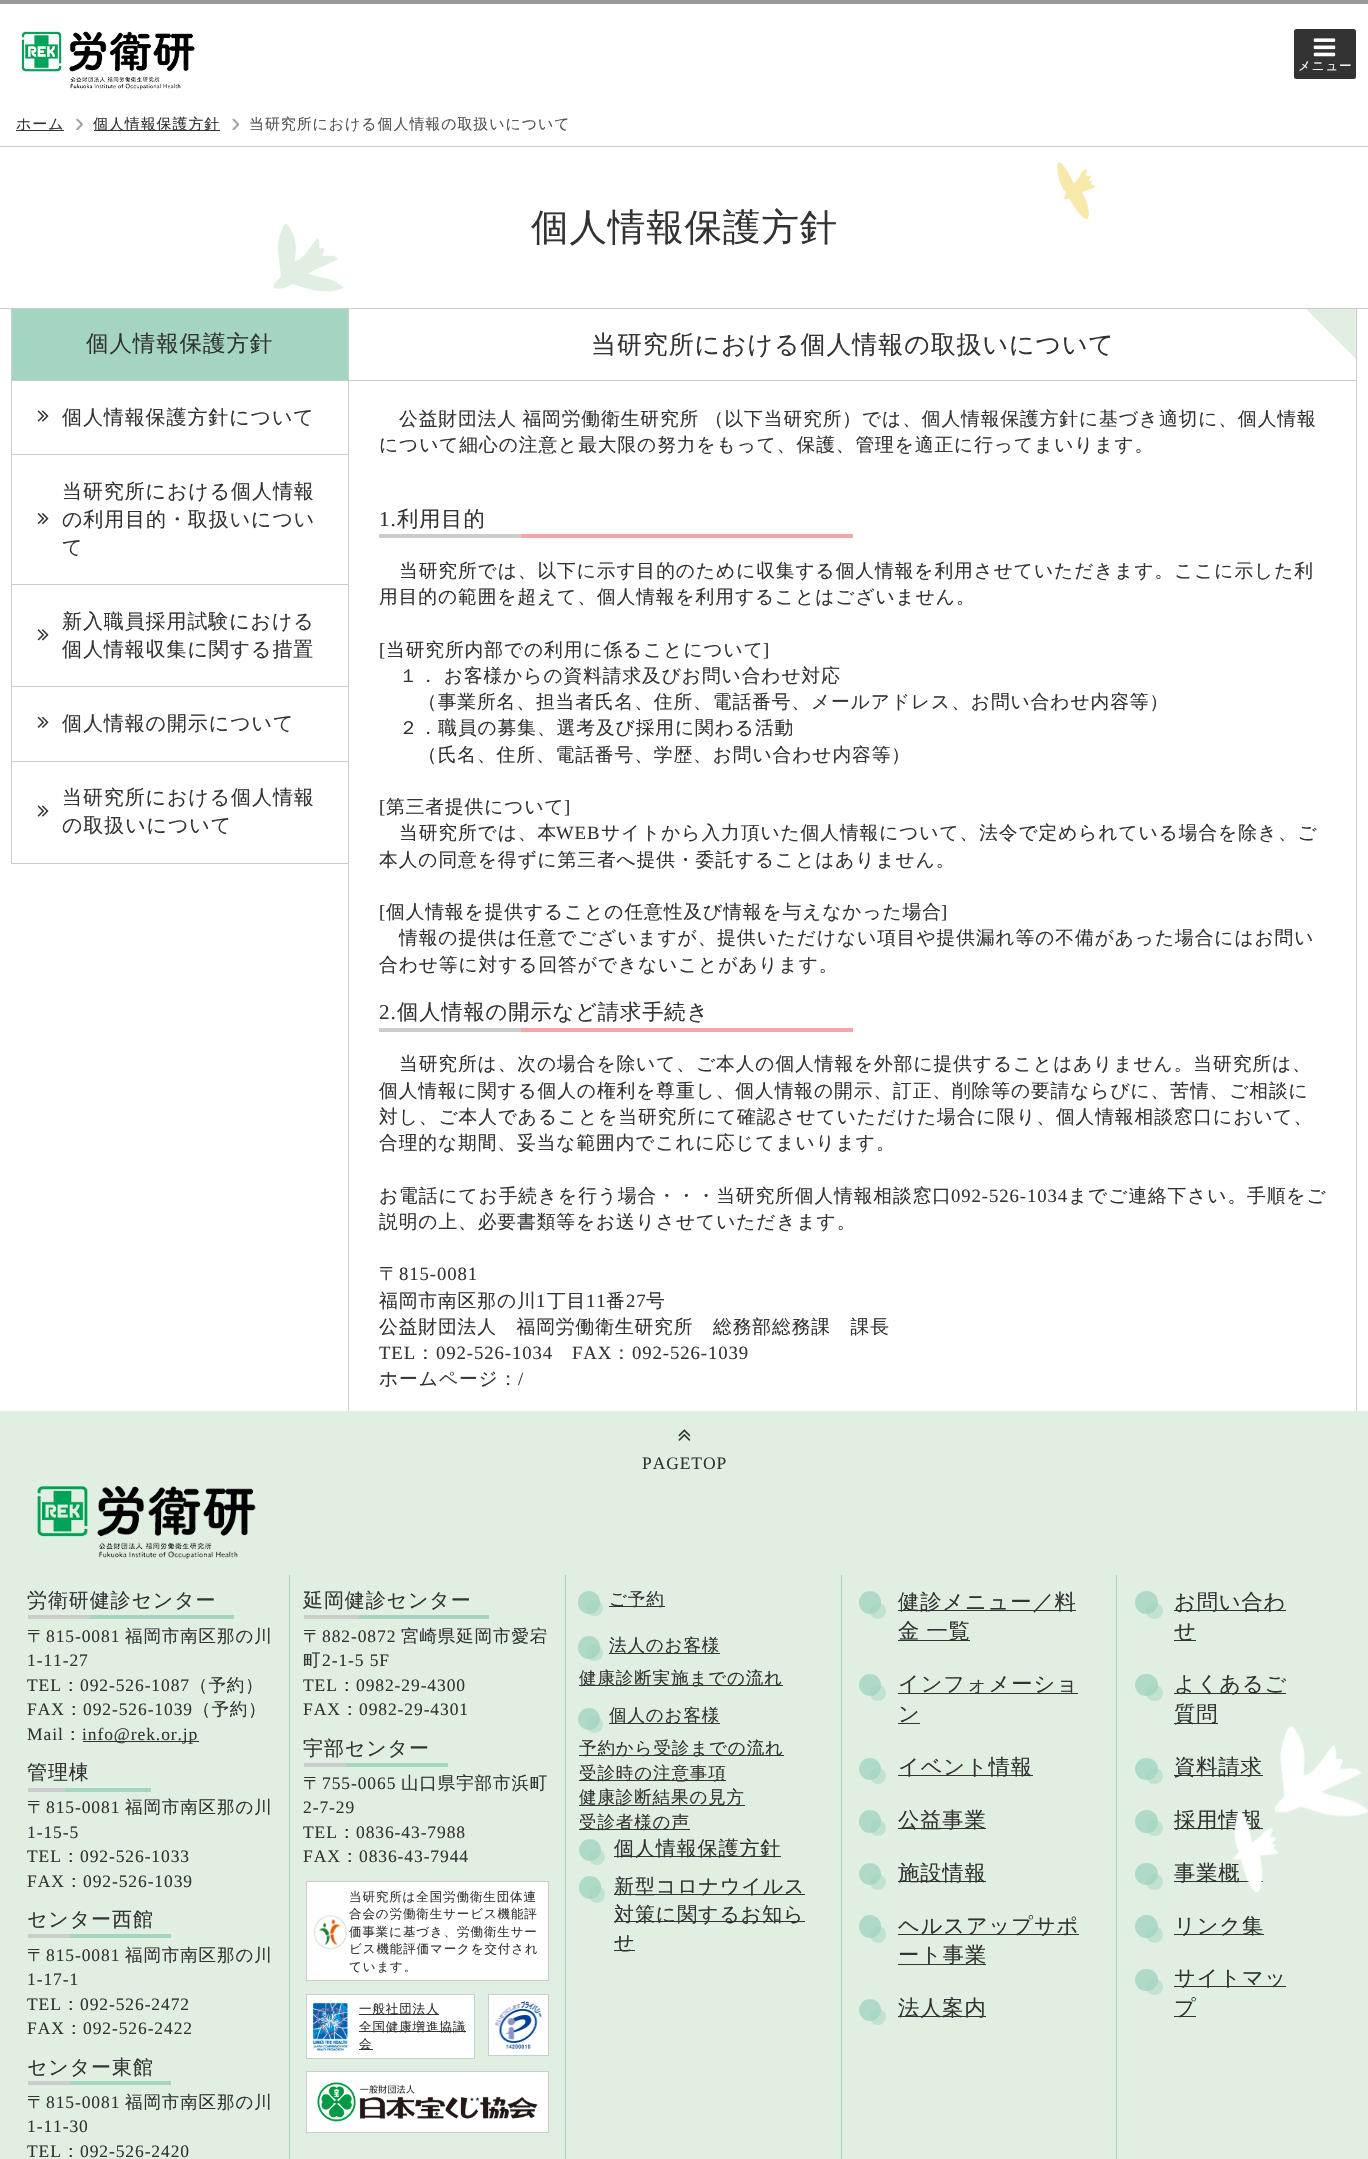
#include "include/core/SkBlurTypes.h"
#include "include/core/SkCanvas.h"
#include "include/core/SkData.h"
#include "include/core/SkFont.h"
#include "include/core/SkFontMgr.h"
#include "include/core/SkImage.h"
#include "include/core/SkMaskFilter.h"
#include "include/core/SkPaint.h"
#include "include/core/SkPathBuilder.h"
#include "include/core/SkTextBlob.h"
#include "include/effects/SkDashPathEffect.h"
#include "include/effects/SkGradientShader.h"
#include "include/utils/SkParsePath.h"

extern sk_sp<SkFontMgr> fontMgr;

void draw(SkCanvas* canvas) {
  SkPaint p;
  p.setAntiAlias(true);
  auto spacedText = [&](const char* s, float x, float y, const SkFont& font, const SkPaint& ink, float letter, float word) {
    std::vector<SkGlyphID> glyphs(font.countText(s, strlen(s), SkTextEncoding::kUTF8));
    std::vector<float> xs(glyphs.size());
    font.textToGlyphs(s, strlen(s), SkTextEncoding::kUTF8, glyphs);
    font.getXPos(glyphs, xs, x);
    float extra = 0;
    for (size_t i = 0; i < glyphs.size(); i++) {
      xs[i] += extra;
      extra += letter + word * (glyphs[i] == font.unicharToGlyph(' '));
    }
    canvas->drawTextBlob(SkTextBlob::MakeFromPosHGlyphs(glyphs, xs, y, font), 0, 0, ink);
  };
  canvas->clear(SK_ColorWHITE);
  p.setColor(SkColorSetRGB(153, 153, 153));
  canvas->drawRect(SkRect::MakeLTRB(0, 0, 1368, 4), p);
  canvas->drawImageRect(SkImages::DeferredFromEncodedData(SkData::MakeFromFileName("images/1.png")), SkRect::MakeLTRB(21, 31, 195, 90), SkSamplingOptions());
  p.setColor(SkColorSetRGB(51, 51, 51));
  canvas->drawRoundRect(SkRect::MakeLTRB(1294, 29, 1356, 79), 2.5f, 2.5f, p);
  canvas->drawImageRect(SkImages::DeferredFromEncodedData(SkData::MakeFromFileName("images/2.png")), SkRect::MakeLTRB(1313, 38, 1336, 57), SkSamplingOptions());
  canvas->drawRect(SkRect::MakeLTRB(16, 130, 64, 131), p);
  canvas->drawImageRect(SkImages::DeferredFromEncodedData(SkData::MakeFromFileName("images/3.png")), SkRect::MakeLTRB(76, 118, 83, 130), SkSamplingOptions());
  canvas->drawRect(SkRect::MakeLTRB(94, 130, 220, 131), p);
  canvas->drawImageRect(SkImages::DeferredFromEncodedData(SkData::MakeFromFileName("images/4.png")), SkRect::MakeLTRB(232, 118, 239, 130), SkSamplingOptions());
  p.setColor(SkColorSetRGB(204, 204, 204));
  canvas->drawRect(SkRect::MakeLTRB(0, 146, 1368, 147), p);
  canvas->drawRect(SkRect::MakeLTRB(0, 308, 1368, 309), p);
  canvas->drawImageRect(SkImages::DeferredFromEncodedData(SkData::MakeFromFileName("images/5.png")), SkRect::MakeLTRB(1057, 162, 1095, 219), SkSamplingOptions());
  canvas->drawImageRect(SkImages::DeferredFromEncodedData(SkData::MakeFromFileName("images/6.png")), SkRect::MakeLTRB(273, 223, 344, 292), SkSamplingOptions());
  p.setColor(SkColorSetRGB(163, 213, 192));
  canvas->drawRect(SkRect::MakeLTRB(12, 309, 348, 380), p);
  p.setColor(SkColorSetRGB(204, 204, 204));
  canvas->drawRect(SkRect::MakeLTRB(11, 380, 348, 381), p);
  canvas->drawRect(SkRect::MakeLTRB(11, 309, 12, 381), p);
  canvas->drawRect(SkRect::MakeLTRB(11, 454, 348, 455), p);
  canvas->drawRect(SkRect::MakeLTRB(11, 381, 12, 455), p);
  canvas->drawImageRect(SkImages::DeferredFromEncodedData(SkData::MakeFromFileName("images/7.png")), SkRect::MakeLTRB(37, 410, 49, 422), SkSamplingOptions());
  canvas->drawRect(SkRect::MakeLTRB(11, 584, 348, 585), p);
  canvas->drawRect(SkRect::MakeLTRB(11, 455, 12, 585), p);
  canvas->drawImageRect(SkImages::DeferredFromEncodedData(SkData::MakeFromFileName("images/8.png")), SkRect::MakeLTRB(37, 513, 49, 525), SkSamplingOptions());
  canvas->drawRect(SkRect::MakeLTRB(11, 686, 348, 687), p);
  canvas->drawRect(SkRect::MakeLTRB(11, 585, 12, 688), p);
  canvas->drawImageRect(SkImages::DeferredFromEncodedData(SkData::MakeFromFileName("images/9.png")), SkRect::MakeLTRB(37, 629, 49, 641), SkSamplingOptions());
  canvas->drawRect(SkRect::MakeLTRB(11, 761, 348, 762), p);
  canvas->drawRect(SkRect::MakeLTRB(11, 688, 12, 763), p);
  canvas->drawImageRect(SkImages::DeferredFromEncodedData(SkData::MakeFromFileName("images/10.png")), SkRect::MakeLTRB(37, 716, 49, 728), SkSamplingOptions());
  canvas->drawRect(SkRect::MakeLTRB(11, 863, 348, 864), p);
  canvas->drawRect(SkRect::MakeLTRB(11, 763, 12, 864), p);
  canvas->drawImageRect(SkImages::DeferredFromEncodedData(SkData::MakeFromFileName("images/7.png")), SkRect::MakeLTRB(37, 805, 49, 817), SkSamplingOptions());
  canvas->drawRect(SkRect::MakeLTRB(1356, 309, 1357, 1413), p);
  canvas->drawRect(SkRect::MakeLTRB(348, 309, 349, 1413), p);
  canvas->drawRect(SkRect::MakeLTRB(349, 380, 1356, 381), p);
  p.setColor(SkColorSetRGB(225, 239, 226));
  canvas->drawPath(SkPathBuilder().moveTo(1356, 309).lineTo(1356, 359).lineTo(1306, 309).close().detach(), p);
  p.setColor(SkColorSetRGB(242, 166, 171));
  canvas->drawRect(SkRect::MakeLTRB(521, 534, 853, 538), p);
  p.setColor(SkColorSetRGB(204, 204, 204));
  canvas->drawRect(SkRect::MakeLTRB(379, 534, 521, 538), p);
  p.setColor(SkColorSetRGB(242, 166, 171));
  canvas->drawRect(SkRect::MakeLTRB(521, 1028, 853, 1032), p);
  p.setColor(SkColorSetRGB(204, 204, 204));
  canvas->drawRect(SkRect::MakeLTRB(379, 1028, 521, 1032), p);
  p.setColor(SkColorSetRGB(225, 239, 226));
  canvas->drawRect(SkRect::MakeLTRB(0, 1411, 1368, 2159), p);
  canvas->drawImageRect(SkImages::DeferredFromEncodedData(SkData::MakeFromFileName("images/11.png")), SkRect::MakeLTRB(678, 1429, 691, 1441), SkSamplingOptions());
  canvas->drawImageRect(SkImages::DeferredFromEncodedData(SkData::MakeFromFileName("images/12.png")), SkRect::MakeLTRB(37, 1486, 256, 1559), SkSamplingOptions());
  p.setColor(SkColorSetRGB(163, 213, 192));
  canvas->drawRect(SkRect::MakeLTRB(289, 1575, 290, 2159), p);
  canvas->drawRect(SkRect::MakeLTRB(90, 1615, 234, 1619), p);
  p.setColor(SkColorSetRGB(204, 204, 204));
  canvas->drawRect(SkRect::MakeLTRB(28, 1615, 90, 1619), p);
  p.setColor(SkColorSetRGB(51, 51, 51));
  canvas->drawRect(SkRect::MakeLTRB(83, 1741, 199, 1742), p);
  p.setColor(SkColorSetRGB(163, 213, 192));
  canvas->drawRect(SkRect::MakeLTRB(65, 1788, 151, 1792), p);
  p.setColor(SkColorSetRGB(204, 204, 204));
  canvas->drawRect(SkRect::MakeLTRB(28, 1788, 65, 1792), p);
  p.setColor(SkColorSetRGB(163, 213, 192));
  canvas->drawRect(SkRect::MakeLTRB(70, 1934, 171, 1938), p);
  p.setColor(SkColorSetRGB(204, 204, 204));
  canvas->drawRect(SkRect::MakeLTRB(28, 1934, 70, 1938), p);
  p.setColor(SkColorSetRGB(163, 213, 192));
  canvas->drawRect(SkRect::MakeLTRB(70, 2081, 171, 2085), p);
  p.setColor(SkColorSetRGB(204, 204, 204));
  canvas->drawRect(SkRect::MakeLTRB(28, 2081, 70, 2085), p);
  p.setColor(SkColorSetRGB(163, 213, 192));
  canvas->drawRect(SkRect::MakeLTRB(565, 1575, 566, 2159), p);
  canvas->drawRect(SkRect::MakeLTRB(359, 1615, 489, 1619), p);
  p.setColor(SkColorSetRGB(204, 204, 204));
  canvas->drawRect(SkRect::MakeLTRB(304, 1615, 359, 1619), p);
  p.setColor(SkColorSetRGB(163, 213, 192));
  canvas->drawRect(SkRect::MakeLTRB(346, 1763, 448, 1767), p);
  p.setColor(SkColorSetRGB(204, 204, 204));
  canvas->drawRect(SkRect::MakeLTRB(304, 1763, 346, 1767), p);
  p.setColor(SK_ColorWHITE);
  canvas->drawRect(SkRect::MakeLTRB(306.5f, 1881.5f, 548.5f, 1980.5f), p);
  p.setStyle(SkPaint::kStroke_Style);
  p.setStrokeWidth(1);
  p.setColor(SkColorSetRGB(204, 204, 204));
  canvas->drawRect(SkRect::MakeLTRB(306.5f, 1881.5f, 548.5f, 1980.5f), p);
  canvas->drawImageRect(SkImages::DeferredFromEncodedData(SkData::MakeFromFileName("images/13.png")), SkRect::MakeLTRB(313, 1915, 347, 1950), SkSamplingOptions());
  p.setStyle(SkPaint::kFill_Style);
  p.setColor(SK_ColorWHITE);
  canvas->drawRect(SkRect::MakeLTRB(306.5f, 1994.5f, 474.5f, 2058.5f), p);
  p.setStyle(SkPaint::kStroke_Style);
  p.setColor(SkColorSetRGB(204, 204, 204));
  canvas->drawRect(SkRect::MakeLTRB(306.5f, 1994.5f, 474.5f, 2058.5f), p);
  canvas->drawImageRect(SkImages::DeferredFromEncodedData(SkData::MakeFromFileName("images/14.png")), SkRect::MakeLTRB(312, 2002, 349, 2052), SkSamplingOptions());
  p.setStyle(SkPaint::kFill_Style);
  p.setColor(SkColorSetRGB(51, 51, 51));
  canvas->drawRect(SkRect::MakeLTRB(359, 2014, 439, 2015), p);
  canvas->drawRect(SkRect::MakeLTRB(359, 2031, 466, 2032), p);
  canvas->drawRect(SkRect::MakeLTRB(359, 2049, 373, 2050), p);
  p.setColor(SK_ColorWHITE);
  canvas->drawRect(SkRect::MakeLTRB(488.5f, 1994.5f, 548.5f, 2055.5f), p);
  p.setStyle(SkPaint::kStroke_Style);
  p.setColor(SkColorSetRGB(204, 204, 204));
  canvas->drawRect(SkRect::MakeLTRB(488.5f, 1994.5f, 548.5f, 2055.5f), p);
  canvas->drawImageRect(SkImages::DeferredFromEncodedData(SkData::MakeFromFileName("images/15.png")), SkRect::MakeLTRB(494, 2001, 542, 2050), SkSamplingOptions());
  p.setStyle(SkPaint::kFill_Style);
  p.setColor(SK_ColorWHITE);
  canvas->drawRect(SkRect::MakeLTRB(306.5f, 2071.5f, 548.5f, 2132.5f), p);
  p.setStyle(SkPaint::kStroke_Style);
  p.setColor(SkColorSetRGB(204, 204, 204));
  canvas->drawRect(SkRect::MakeLTRB(306.5f, 2071.5f, 548.5f, 2132.5f), p);
  canvas->drawImageRect(SkImages::DeferredFromEncodedData(SkData::MakeFromFileName("images/16.png")), SkRect::MakeLTRB(317, 2082, 538, 2122), SkSamplingOptions());
  p.setStyle(SkPaint::kFill_Style);
  p.setColor(SkColorSetRGB(163, 213, 192));
  canvas->drawRect(SkRect::MakeLTRB(841, 1575, 842, 2159), p);
  p.setColor(SkColorSetRGB(194, 226, 209));
  canvas->drawRoundRect(SkRect::MakeLTRB(586, 1600, 603, 1616), 8, 8, p);
  p.setColor(SkColorSetARGB(204, 163, 213, 192));
  canvas->drawRoundRect(SkRect::MakeLTRB(578, 1591, 600, 1614), 11, 11, p);
  p.setColor(SkColorSetRGB(51, 51, 51));
  canvas->drawRect(SkRect::MakeLTRB(609, 1606, 665, 1607), p);
  p.setColor(SkColorSetRGB(194, 226, 209));
  canvas->drawRoundRect(SkRect::MakeLTRB(586, 1645, 603, 1661), 8, 8, p);
  p.setColor(SkColorSetARGB(204, 163, 213, 192));
  canvas->drawRoundRect(SkRect::MakeLTRB(578, 1636, 600, 1659), 11, 11, p);
  p.setColor(SkColorSetRGB(51, 51, 51));
  canvas->drawRect(SkRect::MakeLTRB(609, 1653, 720, 1654), p);
  canvas->drawRect(SkRect::MakeLTRB(579, 1685, 783, 1686), p);
  p.setColor(SkColorSetRGB(194, 226, 209));
  canvas->drawCircle(594.5f, 1724.5f, 8.5f, p);
  p.setColor(SkColorSetARGB(204, 163, 213, 192));
  canvas->drawCircle(589, 1719, 11, p);
  p.setColor(SkColorSetRGB(51, 51, 51));
  canvas->drawRect(SkRect::MakeLTRB(609, 1723, 720, 1724), p);
  canvas->drawRect(SkRect::MakeLTRB(579, 1755, 784, 1756), p);
  canvas->drawRect(SkRect::MakeLTRB(579, 1780, 726, 1781), p);
  canvas->drawRect(SkRect::MakeLTRB(579, 1805, 745, 1806), p);
  canvas->drawRect(SkRect::MakeLTRB(579, 1829, 690, 1830), p);
  p.setColor(SkColorSetRGB(194, 226, 209));
  canvas->drawCircle(597, 1857, 8, p);
  p.setColor(SkColorSetARGB(204, 163, 213, 192));
  canvas->drawCircle(590, 1850, 11, p);
  p.setColor(SkColorSetRGB(51, 51, 51));
  canvas->drawRect(SkRect::MakeLTRB(614, 1856, 781, 1857), p);
  p.setColor(SkColorSetRGB(194, 226, 209));
  canvas->drawRoundRect(SkRect::MakeLTRB(589, 1886, 605, 1903), 8, 8, p);
  p.setColor(SkColorSetARGB(204, 163, 213, 192));
  canvas->drawRoundRect(SkRect::MakeLTRB(579, 1876, 601, 1899), 11, 11, p);
  p.setColor(SkColorSetRGB(51, 51, 51));
  canvas->drawRect(SkRect::MakeLTRB(614, 1894, 805, 1895), p);
  canvas->drawRect(SkRect::MakeLTRB(614, 1921, 805, 1922), p);
  canvas->drawRect(SkRect::MakeLTRB(614, 1950, 635, 1951), p);
  p.setColor(SkColorSetRGB(163, 213, 192));
  canvas->drawRect(SkRect::MakeLTRB(1116, 1575, 1117, 2159), p);
  p.setColor(SkColorSetRGB(194, 226, 209));
  canvas->drawCircle(878, 1611, 8, p);
  p.setColor(SkColorSetARGB(204, 163, 213, 192));
  canvas->drawRoundRect(SkRect::MakeLTRB(859, 1591, 881, 1614), 11, 11, p);
  p.setColor(SkColorSetRGB(51, 51, 51));
  canvas->drawRect(SkRect::MakeLTRB(898, 1610, 1076, 1611), p);
  canvas->drawRect(SkRect::MakeLTRB(898, 1640, 970, 1641), p);
  p.setColor(SkColorSetRGB(194, 226, 209));
  canvas->drawCircle(878, 1693, 8, p);
  p.setColor(SkColorSetARGB(204, 163, 213, 192));
  canvas->drawCircle(870, 1685, 11, p);
  p.setColor(SkColorSetRGB(51, 51, 51));
  canvas->drawRect(SkRect::MakeLTRB(898, 1693, 1078, 1694), p);
  canvas->drawRect(SkRect::MakeLTRB(898, 1723, 920, 1724), p);
  p.setColor(SkColorSetRGB(194, 226, 209));
  canvas->drawCircle(878, 1776, 8, p);
  p.setColor(SkColorSetARGB(204, 163, 213, 192));
  canvas->drawCircle(870, 1769, 11, p);
  p.setColor(SkColorSetRGB(51, 51, 51));
  canvas->drawRect(SkRect::MakeLTRB(898, 1775, 1033, 1776), p);
  p.setColor(SkColorSetRGB(194, 226, 209));
  canvas->drawCircle(878, 1828, 8, p);
  p.setColor(SkColorSetARGB(204, 163, 213, 192));
  canvas->drawRoundRect(SkRect::MakeLTRB(859, 1810, 881, 1833), 11, 11, p);
  p.setColor(SkColorSetRGB(51, 51, 51));
  canvas->drawRect(SkRect::MakeLTRB(898, 1828, 986, 1829), p);
  p.setColor(SkColorSetRGB(194, 226, 209));
  canvas->drawCircle(878, 1882, 8, p);
  p.setColor(SkColorSetARGB(204, 163, 213, 192));
  canvas->drawCircle(870, 1874, 11, p);
  p.setColor(SkColorSetRGB(51, 51, 51));
  canvas->drawRect(SkRect::MakeLTRB(898, 1881, 986, 1882), p);
  p.setColor(SkColorSetRGB(194, 226, 209));
  canvas->drawRoundRect(SkRect::MakeLTRB(870, 1926, 886, 1943), 8, 8, p);
  p.setColor(SkColorSetARGB(204, 163, 213, 192));
  canvas->drawRoundRect(SkRect::MakeLTRB(859, 1915, 881, 1938), 11, 11, p);
  p.setColor(SkColorSetRGB(51, 51, 51));
  canvas->drawRect(SkRect::MakeLTRB(898, 1934, 1079, 1935), p);
  canvas->drawRect(SkRect::MakeLTRB(898, 1964, 986, 1965), p);
  p.setColor(SkColorSetRGB(194, 226, 209));
  canvas->drawCircle(878, 2017, 8, p);
  p.setColor(SkColorSetARGB(204, 163, 213, 192));
  canvas->drawCircle(870, 2010, 11, p);
  p.setColor(SkColorSetRGB(51, 51, 51));
  canvas->drawRect(SkRect::MakeLTRB(898, 2016, 986, 2017), p);
  p.setColor(SkColorSetRGB(194, 226, 209));
  canvas->drawRoundRect(SkRect::MakeLTRB(1146, 1603, 1163, 1619), 8, 8, p);
  p.setColor(SkColorSetARGB(204, 163, 213, 192));
  canvas->drawCircle(1146.5f, 1602.5f, 11.5f, p);
  p.setColor(SkColorSetRGB(51, 51, 51));
  canvas->drawRect(SkRect::MakeLTRB(1174, 1610, 1286, 1611), p);
  canvas->drawRect(SkRect::MakeLTRB(1174, 1640, 1196, 1641), p);
  p.setColor(SkColorSetRGB(194, 226, 209));
  canvas->drawRoundRect(SkRect::MakeLTRB(1146, 1685, 1163, 1701), 8, 8, p);
  p.setColor(SkColorSetARGB(204, 163, 213, 192));
  canvas->drawRoundRect(SkRect::MakeLTRB(1135, 1674, 1158, 1696), 11, 11, p);
  p.setColor(SkColorSetRGB(51, 51, 51));
  canvas->drawRect(SkRect::MakeLTRB(1174, 1693, 1286, 1694), p);
  canvas->drawRect(SkRect::MakeLTRB(1174, 1723, 1218, 1724), p);
  p.setColor(SkColorSetRGB(194, 226, 209));
  canvas->drawRoundRect(SkRect::MakeLTRB(1146, 1768, 1163, 1784), 8, 8, p);
  p.setColor(SkColorSetARGB(204, 163, 213, 192));
  canvas->drawRoundRect(SkRect::MakeLTRB(1135, 1758, 1158, 1780), 11, 11, p);
  p.setColor(SkColorSetRGB(51, 51, 51));
  canvas->drawRect(SkRect::MakeLTRB(1174, 1775, 1263, 1776), p);
  p.setColor(SkColorSetRGB(194, 226, 209));
  canvas->drawRoundRect(SkRect::MakeLTRB(1146, 1820, 1163, 1836), 8, 8, p);
  p.setColor(SkColorSetARGB(204, 163, 213, 192));
  canvas->drawCircle(1146.5f, 1821.5f, 11.5f, p);
  p.setColor(SkColorSetRGB(51, 51, 51));
  canvas->drawRect(SkRect::MakeLTRB(1174, 1828, 1263, 1829), p);
  p.setColor(SkColorSetRGB(194, 226, 209));
  canvas->drawRoundRect(SkRect::MakeLTRB(1146, 1874, 1163, 1890), 8, 8, p);
  p.setColor(SkColorSetARGB(204, 163, 213, 192));
  canvas->drawRoundRect(SkRect::MakeLTRB(1135, 1863, 1158, 1885), 11, 11, p);
  p.setColor(SkColorSetRGB(51, 51, 51));
  canvas->drawRect(SkRect::MakeLTRB(1174, 1881, 1263, 1882), p);
  p.setColor(SkColorSetRGB(194, 226, 209));
  canvas->drawCircle(1154.5f, 1934.5f, 8.5f, p);
  p.setColor(SkColorSetARGB(204, 163, 213, 192));
  canvas->drawCircle(1146.5f, 1926.5f, 11.5f, p);
  p.setColor(SkColorSetRGB(51, 51, 51));
  canvas->drawRect(SkRect::MakeLTRB(1174, 1934, 1264, 1935), p);
  p.setColor(SkColorSetRGB(194, 226, 209));
  canvas->drawRoundRect(SkRect::MakeLTRB(1146, 1979, 1163, 1995), 8, 8, p);
  p.setColor(SkColorSetARGB(204, 163, 213, 192));
  canvas->drawRoundRect(SkRect::MakeLTRB(1135, 1969, 1158, 1991), 11, 11, p);
  p.setColor(SkColorSetRGB(51, 51, 51));
  canvas->drawRect(SkRect::MakeLTRB(1174, 1986, 1286, 1987), p);
  canvas->drawRect(SkRect::MakeLTRB(1174, 2016, 1196, 2017), p);
  SkFont font1(fontMgr->matchFamilyStyle("WenQuanYi Zen Hei", SkFontStyle(500, SkFontStyle::kNormal_Width, SkFontStyle::kUpright_Slant)), 12.5f);
  font1.setSubpixel(true);
  p.setColor(SK_ColorWHITE);
  spacedText("メニュー", 1298, 70, font1, p, 0.9f, 0);
  SkFont font2(fontMgr->matchFamilyStyle("WenQuanYi Zen Hei", SkFontStyle(500, SkFontStyle::kNormal_Width, SkFontStyle::kUpright_Slant)), 15);
  font2.setSubpixel(true);
  p.setColor(SkColorSetRGB(51, 51, 51));
  spacedText("ホーム", 16, 129, font2, p, 0.9f, 0);
  spacedText("個人情報保護方針", 93, 129, font2, p, 0.9f, 0);
  p.setColor(SkColorSetRGB(82, 82, 82));
  spacedText("当研究所における個人情報の取扱いについて", 249, 129, font2, p, 0.9f, 0);
  SkFont font3(fontMgr->matchFamilyStyle("WenQuanYi Zen Hei", SkFontStyle(500, SkFontStyle::kNormal_Width, SkFontStyle::kUpright_Slant)), 37.5f);
  font3.setSubpixel(true);
  p.setColor(SkColorSetRGB(51, 51, 51));
  spacedText("個人情報保護方針", 531, 240, font3, p, 0.9f, 0);
  SkFont font4(fontMgr->matchFamilyStyle("WenQuanYi Zen Hei", SkFontStyle(500, SkFontStyle::kNormal_Width, SkFontStyle::kUpright_Slant)), 22.5f);
  font4.setSubpixel(true);
  spacedText("個人情報保護方針", 86, 351, font4, p, 0.9f, 0);
  SkFont font5(fontMgr->matchFamilyStyle("WenQuanYi Zen Hei", SkFontStyle(500, SkFontStyle::kNormal_Width, SkFontStyle::kUpright_Slant)), 20);
  font5.setSubpixel(true);
  spacedText("個人情報保護方針について", 62, 424, font5, p, 0.9f, 0);
  spacedText("当研究所における個人情報", 62, 498, font5, p, 0.9f, 0);
  spacedText("の利用目的・取扱いについ", 62, 526, font5, p, 0.9f, 0);
  spacedText("て", 62, 554, font5, p, 0.9f, 0);
  spacedText("新入職員採用試験における", 62, 628, font5, p, 0.9f, 0);
  spacedText("個人情報収集に関する措置", 62, 656, font5, p, 0.9f, 0);
  spacedText("個人情報の開示について", 62, 730, font5, p, 0.9f, 0);
  spacedText("当研究所における個人情報", 62, 804, font5, p, 0.9f, 0);
  spacedText("の取扱いについて", 62, 832, font5, p, 0.9f, 0);
  SkFont font6(fontMgr->matchFamilyStyle("WenQuanYi Zen Hei", SkFontStyle(500, SkFontStyle::kNormal_Width, SkFontStyle::kUpright_Slant)), 25);
  font6.setSubpixel(true);
  spacedText("当研究所における個人情報の取扱いについて", 591, 353, font6, p, 0.9f, 0);
  SkFont font7(fontMgr->matchFamilyStyle("WenQuanYi Zen Hei", SkFontStyle(500, SkFontStyle::kNormal_Width, SkFontStyle::kUpright_Slant)), 18.75f);
  font7.setSubpixel(true);
  spacedText("公益財団法人 福岡労働衛生研究所 （以下当研究所）では、個人情報保護方針に基づき適切に、個人情報", 399, 425, font7, p, 0.9f, -1);
  spacedText("について細心の注意と最大限の努力をもって、保護、管理を適正に行ってまいります。", 379, 451, font7, p, 0.9f, 0);
  SkFont font8(fontMgr->matchFamilyStyle("Liberation Serif", SkFontStyle::Normal()), 21.25f);
  font8.setSubpixel(true);
  spacedText("1.", 379, 526, font8, p, 0.9f, 0);
  SkFont font9(fontMgr->matchFamilyStyle("WenQuanYi Zen Hei", SkFontStyle(500, SkFontStyle::kNormal_Width, SkFontStyle::kUpright_Slant)), 21.25f);
  font9.setSubpixel(true);
  spacedText("利用目的", 397, 526, font9, p, 0.9f, 0);
  spacedText("当研究所では、以下に示す目的のために収集する個人情報を利用させていただきます。ここに示した利", 399, 577, font7, p, 0.9f, 0);
  spacedText("用目的の範囲を超えて、個人情報を利用することはございません。", 379, 603, font7, p, 0.9f, 0);
  SkFont font10(fontMgr->matchFamilyStyle("Liberation Serif", SkFontStyle::Normal()), 18.75f);
  font10.setSubpixel(true);
  spacedText("[", 379, 656, font10, p, 0.9f, 0);
  spacedText("当研究所内部での利用に係ることについて", 386, 656, font7, p, 0.9f, 0);
  spacedText("]", 763, 656, font10, p, 0.9f, 0);
  spacedText("１． お客様からの資料請求及びお問い合わせ対応", 399, 682, font7, p, 0.9f, -1);
  spacedText("（事業所名、担当者氏名、住所、電話番号、メールアドレス、お問い合わせ内容等）", 418, 708, font7, p, 0.9f, 0);
  spacedText("２．職員の募集、選考及び採用に関わる活動", 399, 734, font7, p, 0.9f, 0);
  spacedText("（氏名、住所、電話番号、学歴、お問い合わせ内容等）", 418, 761, font7, p, 0.9f, 0);
  spacedText("[", 379, 813, font10, p, 0.9f, 0);
  spacedText("第三者提供について", 386, 813, font7, p, 0.9f, 0);
  spacedText("]", 564, 813, font10, p, 0.9f, 0);
  spacedText("当研究所では、本", 399, 839, font7, p, 0.9f, 0);
  spacedText("WEB", 556, 839, font10, p, 0.9f, 0);
  spacedText("サイトから入力頂いた個人情報について、法令で定められている場合を除き、ご", 601, 839, font7, p, 0.9f, 0);
  spacedText("本人の同意を得ずに第三者へ提供・委託することはありません。", 379, 866, font7, p, 0.9f, 0);
  spacedText("[", 379, 918, font10, p, 0.9f, 0);
  spacedText("個人情報を提供することの任意性及び情報を与えなかった場合", 386, 918, font7, p, 0.9f, 0);
  spacedText("]", 941, 918, font10, p, 0.9f, 0);
  spacedText("情報の提供は任意でございますが、提供いただけない項目や提供漏れ等の不備があった場合にはお問い", 399, 944, font7, p, 0.9f, 0);
  spacedText("合わせ等に対する回答ができないことがあります。", 379, 971, font7, p, 0.9f, 0);
  spacedText("2.", 379, 1019, font8, p, 0.9f, 0);
  spacedText("個人情報の開示など請求手続き", 397, 1019, font9, p, 0.9f, 0);
  spacedText("当研究所は、次の場合を除いて、ご本人の個人情報を外部に提供することはありません。当研究所は、", 399, 1070, font7, p, 0.9f, 0);
  spacedText("個人情報に関する個人の権利を尊重し、個人情報の開示、訂正、削除等の要請ならびに、苦情、ご相談に", 379, 1097, font7, p, 0.9f, 0);
  spacedText("対し、ご本人であることを当研究所にて確認させていただけた場合に限り、個人情報相談窓口において、", 379, 1123, font7, p, 0.9f, 0);
  spacedText("合理的な期間、妥当な範囲内でこれに応じてまいります。", 379, 1149, font7, p, 0.9f, 0);
  spacedText("お電話にてお手続きを行う場合・・・当研究所個人情報相談窓口", 379, 1202, font7, p, 0.9f, 0);
  spacedText("092-526-1034", 951, 1202, font10, p, 0.9f, 0);
  spacedText("までご連絡下さい。手順をご", 1068, 1202, font7, p, 0.9f, 0);
  spacedText("説明の上、必要書類等をお送りさせていただきます。", 379, 1228, font7, p, 0.9f, 0);
  spacedText("〒", 379, 1280, font7, p, 0.9f, 0);
  spacedText("815-0081", 399, 1280, font10, p, 0.9f, 0);
  spacedText("福岡市南区那の川", 379, 1307, font7, p, 0.9f, 0);
  spacedText("1", 536, 1307, font10, p, 0.9f, 0);
  spacedText("丁目", 547, 1307, font7, p, 0.9f, 0);
  spacedText("11", 586, 1307, font10, p, 0.9f, 0);
  spacedText("番", 606, 1307, font7, p, 0.9f, 0);
  spacedText("27", 626, 1307, font10, p, 0.9f, 0);
  spacedText("号", 646, 1307, font7, p, 0.9f, 0);
  spacedText("公益財団法人　福岡労働衛生研究所　総務部総務課　課長", 379, 1333, font7, p, 0.9f, 0);
  spacedText("TEL", 379, 1359, font10, p, 0.9f, 0);
  spacedText("：", 416, 1359, font7, p, 0.9f, 0);
  spacedText("092-526-1034", 436, 1359, font10, p, 0.9f, 0);
  spacedText("FAX", 572, 1359, font10, p, 0.9f, 0);
  spacedText("：", 612, 1359, font7, p, 0.9f, 0);
  spacedText("092-526-1039", 632, 1359, font10, p, 0.9f, 0);
  spacedText("ホームページ：", 379, 1385, font7, p, 0.9f, 0);
  spacedText("/", 518, 1385, font10, p, 0.9f, 0);
  SkFont font11(fontMgr->matchFamilyStyle("Liberation Serif", SkFontStyle::Normal()), 17.5f);
  font11.setSubpixel(true);
  spacedText("PAGETOP", 642, 1469, font11, p, 0.9f, 0);
  spacedText("労衛研健診センター", 27, 1607, font5, p, 0.9f, 0);
  SkFont font12(fontMgr->matchFamilyStyle("WenQuanYi Zen Hei", SkFontStyle(500, SkFontStyle::kNormal_Width, SkFontStyle::kUpright_Slant)), 17.5f);
  font12.setSubpixel(true);
  spacedText("〒", 27, 1642, font12, p, 0.9f, 0);
  spacedText("815-0081", 46, 1642, font11, p, 0.9f, 0);
  spacedText("福岡市南区那の川", 125, 1642, font12, p, 0.9f, 0);
  spacedText("1-11-27", 27, 1666, font11, p, 0.9f, 0);
  spacedText("TEL", 27, 1691, font11, p, 0.9f, 0);
  spacedText("：", 62, 1691, font12, p, 0.9f, 0);
  spacedText("092-526-1087", 80, 1691, font11, p, 0.9f, 0);
  spacedText("（予約）", 190, 1691, font12, p, 0.9f, 0);
  spacedText("FAX", 27, 1715, font11, p, 0.9f, 0);
  spacedText("：", 65, 1715, font12, p, 0.9f, 0);
  spacedText("092-526-1039", 83, 1715, font11, p, 0.9f, 0);
  spacedText("（予約）", 193, 1715, font12, p, 0.9f, 0);
  spacedText("Mail", 27, 1740, font11, p, 0.9f, 0);
  spacedText("：", 64, 1740, font12, p, 0.9f, 0);
  spacedText("info@rek.or.jp", 82, 1740, font11, p, 0.9f, 0);
  spacedText("管理棟", 27, 1779, font5, p, 0.9f, 0);
  spacedText("〒", 27, 1813, font12, p, 0.9f, 0);
  spacedText("815-0081", 46, 1813, font11, p, 0.9f, 0);
  spacedText("福岡市南区那の川", 125, 1813, font12, p, 0.9f, 0);
  spacedText("1-15-5", 27, 1838, font11, p, 0.9f, 0);
  spacedText("TEL", 27, 1862, font11, p, 0.9f, 0);
  spacedText("：", 62, 1862, font12, p, 0.9f, 0);
  spacedText("092-526-1033", 80, 1862, font11, p, 0.9f, 0);
  spacedText("FAX", 27, 1887, font11, p, 0.9f, 0);
  spacedText("：", 65, 1887, font12, p, 0.9f, 0);
  spacedText("092-526-1039", 83, 1887, font11, p, 0.9f, 0);
  spacedText("センター西館", 27, 1926, font5, p, 0.9f, 0);
  spacedText("〒", 27, 1961, font12, p, 0.9f, 0);
  spacedText("815-0081", 46, 1961, font11, p, 0.9f, 0);
  spacedText("福岡市南区那の川", 125, 1961, font12, p, 0.9f, 0);
  spacedText("1-17-1", 27, 1985, font11, p, 0.9f, 0);
  spacedText("TEL", 27, 2010, font11, p, 0.9f, 0);
  spacedText("：", 62, 2010, font12, p, 0.9f, 0);
  spacedText("092-526-2472", 80, 2010, font11, p, 0.9f, 0);
  spacedText("FAX", 27, 2034, font11, p, 0.9f, 0);
  spacedText("：", 65, 2034, font12, p, 0.9f, 0);
  spacedText("092-526-2422", 83, 2034, font11, p, 0.9f, 0);
  spacedText("センター東館", 27, 2074, font5, p, 0.9f, 0);
  spacedText("〒", 27, 2108, font12, p, 0.9f, 0);
  spacedText("815-0081", 46, 2108, font11, p, 0.9f, 0);
  spacedText("福岡市南区那の川", 125, 2108, font12, p, 0.9f, 0);
  spacedText("1-11-30", 27, 2132, font11, p, 0.9f, 0);
  spacedText("TEL", 27, 2157, font11, p, 0.9f, 0);
  spacedText("：", 62, 2157, font12, p, 0.9f, 0);
  spacedText("092-526-2420", 80, 2157, font11, p, 0.9f, 0);
  spacedText("延岡健診センター", 303, 1607, font5, p, 0.9f, 0);
  spacedText("〒", 303, 1642, font12, p, 0.9f, 0);
  spacedText("882-0872", 322, 1642, font11, p, 0.9f, 0);
  spacedText("宮崎県延岡市愛宕", 401, 1642, font12, p, 0.9f, 0);
  spacedText("町", 303, 1666, font12, p, 0.9f, 0);
  spacedText("2-1-5 5F", 322, 1666, font11, p, 0.9f, 0);
  spacedText("TEL", 303, 1691, font11, p, 0.9f, 0);
  spacedText("：", 338, 1691, font12, p, 0.9f, 0);
  spacedText("0982-29-4300", 356, 1691, font11, p, 0.9f, 0);
  spacedText("FAX", 303, 1715, font11, p, 0.9f, 0);
  spacedText("：", 341, 1715, font12, p, 0.9f, 0);
  spacedText("0982-29-4301", 359, 1715, font11, p, 0.9f, 0);
  spacedText("宇部センター", 303, 1755, font5, p, 0.9f, 0);
  spacedText("〒", 303, 1789, font12, p, 0.9f, 0);
  spacedText("755-0065", 322, 1789, font11, p, 0.9f, 0);
  spacedText("山口県宇部市浜町", 401, 1789, font12, p, 0.9f, 0);
  spacedText("2-7-29", 303, 1813, font11, p, 0.9f, 0);
  spacedText("TEL", 303, 1838, font11, p, 0.9f, 0);
  spacedText("：", 338, 1838, font12, p, 0.9f, 0);
  spacedText("0836-43-7988", 356, 1838, font11, p, 0.9f, 0);
  spacedText("FAX", 303, 1862, font11, p, 0.9f, 0);
  spacedText("：", 341, 1862, font12, p, 0.9f, 0);
  spacedText("0836-43-7944", 359, 1862, font11, p, 0.9f, 0);
  spacedText("当研究所は全国労働衛生団体連", 349, 1901, font1, p, 0.9f, 0);
  spacedText("合会の労働衛生サービス機能評", 349, 1918, font1, p, 0.9f, 0);
  spacedText("価事業に基づき、労働衛生サー", 349, 1936, font1, p, 0.9f, 0);
  spacedText("ビス機能評価マークを交付され", 349, 1953, font1, p, 0.9f, 0);
  spacedText("ています。", 349, 1971, font1, p, 0.9f, 0);
  spacedText("一般社団法人", 359, 2013, font1, p, 0.9f, 0);
  spacedText("全国健康増進協議", 359, 2031, font1, p, 0.9f, 0);
  spacedText("会", 359, 2048, font1, p, 0.9f, 0);
  spacedText("ご予約", 609, 1605, font12, p, 0.9f, 0);
  spacedText("法人のお客様", 609, 1651, font12, p, 0.9f, 0);
  spacedText("健康診断実施までの流れ", 579, 1684, font12, p, 0.9f, 0);
  spacedText("個人のお客様", 609, 1721, font12, p, 0.9f, 0);
  spacedText("予約から受診までの流れ", 579, 1754, font12, p, 0.9f, 0);
  spacedText("受診時の注意事項", 579, 1779, font12, p, 0.9f, 0);
  spacedText("健康診断結果の見方", 579, 1803, font12, p, 0.9f, 0);
  spacedText("受診者様の声", 579, 1828, font12, p, 0.9f, 0);
  spacedText("個人情報保護方針", 614, 1855, font5, p, 0.9f, 0);
  spacedText("新型コロナウイルス", 614, 1893, font5, p, 0.9f, 0);
  spacedText("対策に関するお知ら", 614, 1921, font5, p, 0.9f, 0);
  spacedText("せ", 614, 1949, font5, p, 0.9f, 0);
  spacedText("健診メニュー／料", 898, 1609, font9, p, 0.9f, 0);
  spacedText("金 一覧", 898, 1638, font9, p, 0.9f, -1);
  spacedText("インフォメーショ", 898, 1691, font9, p, 0.9f, 0);
  spacedText("ン", 898, 1721, font9, p, 0.9f, 0);
  spacedText("イベント情報", 898, 1774, font9, p, 0.9f, 0);
  spacedText("公益事業", 898, 1827, font9, p, 0.9f, 0);
  spacedText("施設情報", 898, 1880, font9, p, 0.9f, 0);
  spacedText("ヘルスアップサポ", 898, 1933, font9, p, 0.9f, 0);
  spacedText("ート事業", 898, 1962, font9, p, 0.9f, 0);
  spacedText("法人案内", 898, 2015, font9, p, 0.9f, 0);
  spacedText("お問い合わ", 1174, 1609, font9, p, 0.9f, 0);
  spacedText("せ", 1174, 1638, font9, p, 0.9f, 0);
  spacedText("よくあるご", 1174, 1691, font9, p, 0.9f, 0);
  spacedText("質問", 1174, 1721, font9, p, 0.9f, 0);
  spacedText("資料請求", 1174, 1774, font9, p, 0.9f, 0);
  spacedText("採用情報", 1174, 1827, font9, p, 0.9f, 0);
  spacedText("事業概", 1174, 1880, font9, p, 0.9f, 0);
  spacedText("リンク集", 1174, 1933, font9, p, 0.9f, 0);
  spacedText("サイトマッ", 1174, 1985, font9, p, 0.9f, 0);
  spacedText("プ", 1174, 2015, font9, p, 0.9f, 0);
  canvas->drawImageRect(SkImages::DeferredFromEncodedData(SkData::MakeFromFileName("images/17.png")), SkRect::MakeLTRB(1233, 1726, 1368, 1893), SkSamplingOptions());
}
